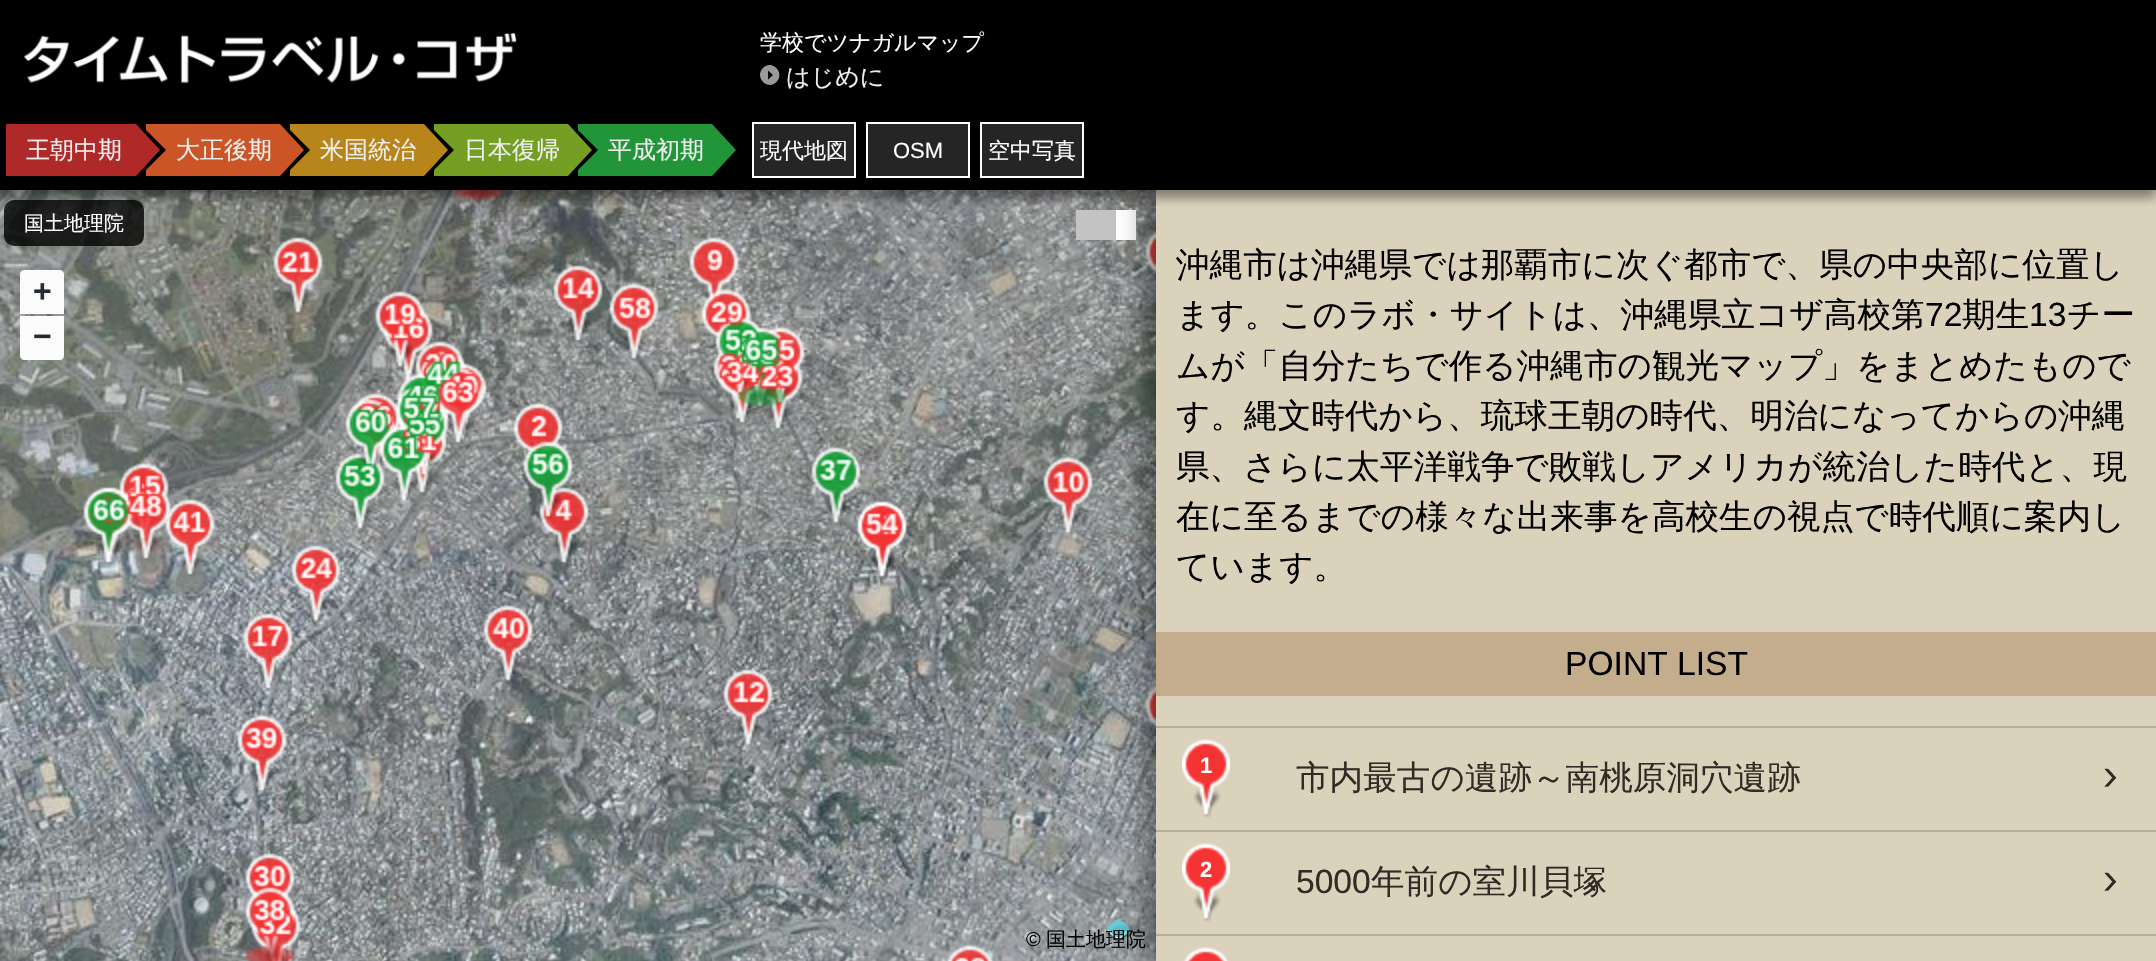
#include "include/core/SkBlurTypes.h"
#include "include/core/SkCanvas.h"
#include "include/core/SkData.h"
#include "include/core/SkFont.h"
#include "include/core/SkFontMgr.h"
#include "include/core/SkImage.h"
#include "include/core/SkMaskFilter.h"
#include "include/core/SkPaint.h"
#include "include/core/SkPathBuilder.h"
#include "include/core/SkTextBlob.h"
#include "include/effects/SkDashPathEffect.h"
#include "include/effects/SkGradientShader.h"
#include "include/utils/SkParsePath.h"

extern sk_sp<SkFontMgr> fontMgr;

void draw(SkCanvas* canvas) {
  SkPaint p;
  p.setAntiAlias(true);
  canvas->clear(SK_ColorBLACK);
  canvas->drawImageRect(SkImages::DeferredFromEncodedData(SkData::MakeFromFileName("images/2.png")), SkRect::MakeLTRB(0, 190, 1156, 961), SkSamplingOptions());
  p.setColor(SkColorSetARGB(204, 0, 0, 0));
  canvas->drawRoundRect(SkRect::MakeLTRB(4, 200, 144, 246), 10, 10, p);
  p.setColor(SkColorSetRGB(195, 195, 195));
  canvas->drawRect(SkRect::MakeLTRB(1076, 210, 1116, 240), p);
  p.setColor(SK_ColorWHITE);
  canvas->drawRect(SkRect::MakeLTRB(1116, 210, 1136, 240), p);
  canvas->drawImageRect(SkImages::DeferredFromEncodedData(SkData::MakeFromFileName("images/3.png")), SkRect::MakeLTRB(1107, 919, 1130, 942), SkSamplingOptions());
  p.setColor(SkColorSetARGB(102, 0, 0, 0));
  p.setMaskFilter(SkMaskFilter::MakeBlur(kNormal_SkBlurStyle, 12));
  canvas->drawRect(SkRect::MakeLTRB(1144, 186, 2152, 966), p);
  p.setMaskFilter(nullptr);
  p.setColor(SkColorSetRGB(219, 210, 188));
  canvas->drawRect(SkRect::MakeLTRB(1156, 190, 2156, 961), p);
  canvas->save();
  canvas->clipRect(SkRect::MakeLTRB(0, 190, 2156, 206));
  p.setColor(SkColorSetARGB(102, 0, 0, 0));
  p.setMaskFilter(SkMaskFilter::MakeBlur(kNormal_SkBlurStyle, 5));
  canvas->drawRect(SkRect::MakeLTRB(0, 8, 2156, 198), p);
  p.setMaskFilter(nullptr);
  canvas->restore();
  canvas->drawImageRect(SkImages::DeferredFromEncodedData(SkData::MakeFromFileName("images/1.png")), SkRect::MakeLTRB(23, 32, 517, 84), SkSamplingOptions());
  p.setColor(SkColorSetRGB(153, 153, 153));
  canvas->drawPath(SkPathBuilder().moveTo(776.5f, 82).cubicTo(767.5f, 91, 754, 77, 763, 68).cubicTo(772, 59, 785.5f, 73, 776.5f, 82).close().moveTo(768, 79.5f).lineTo(773, 75).lineTo(768, 70.5f).close().detach(), p);
  p.setColor(SkColorSetRGB(176, 41, 41));
  canvas->drawRect(SkRect::MakeLTRB(6, 124, 136, 176), p);
  p.setColor(SkColorSetRGB(203, 85, 39));
  canvas->drawRect(SkRect::MakeLTRB(146, 124, 280, 176), p);
  p.setColor(SK_ColorBLACK);
  canvas->drawPath(SkPathBuilder().moveTo(136, 180).lineTo(136, 120).lineTo(166, 150).close().detach(), p);
  p.setColor(SkColorSetRGB(176, 41, 41));
  canvas->drawPath(SkPathBuilder().moveTo(136, 176).lineTo(136, 124).lineTo(160, 150).close().detach(), p);
  p.setColor(SkColorSetRGB(183, 133, 25));
  canvas->drawRect(SkRect::MakeLTRB(290, 124, 424, 176), p);
  p.setColor(SK_ColorBLACK);
  canvas->drawPath(SkPathBuilder().moveTo(280, 180).lineTo(280, 120).lineTo(310, 150).close().detach(), p);
  p.setColor(SkColorSetRGB(203, 85, 39));
  canvas->drawPath(SkPathBuilder().moveTo(280, 176).lineTo(280, 124).lineTo(304, 150).close().detach(), p);
  p.setColor(SkColorSetRGB(116, 159, 34));
  canvas->drawRect(SkRect::MakeLTRB(434, 124, 568, 176), p);
  p.setColor(SK_ColorBLACK);
  canvas->drawPath(SkPathBuilder().moveTo(424, 180).lineTo(424, 120).lineTo(454, 150).close().detach(), p);
  p.setColor(SkColorSetRGB(183, 133, 25));
  canvas->drawPath(SkPathBuilder().moveTo(424, 176).lineTo(424, 124).lineTo(448, 150).close().detach(), p);
  p.setColor(SkColorSetRGB(33, 149, 55));
  canvas->drawRect(SkRect::MakeLTRB(578, 124, 712, 176), p);
  p.setColor(SK_ColorBLACK);
  canvas->drawPath(SkPathBuilder().moveTo(568, 180).lineTo(568, 120).lineTo(598, 150).close().detach(), p);
  p.setColor(SkColorSetRGB(116, 159, 34));
  canvas->drawPath(SkPathBuilder().moveTo(568, 176).lineTo(568, 124).lineTo(592, 150).close().detach(), p);
  p.setColor(SkColorSetRGB(33, 149, 55));
  canvas->drawPath(SkPathBuilder().moveTo(712, 176).lineTo(712, 124).lineTo(736, 150).close().detach(), p);
  p.setColor(SkColorSetRGB(37, 37, 37));
  canvas->drawRect(SkRect::MakeLTRB(753, 123, 855, 177), p);
  p.setStyle(SkPaint::kStroke_Style);
  p.setStrokeWidth(2);
  p.setColor(SK_ColorWHITE);
  canvas->drawRect(SkRect::MakeLTRB(753, 123, 855, 177), p);
  p.setStyle(SkPaint::kFill_Style);
  p.setColor(SkColorSetRGB(37, 37, 37));
  canvas->drawRect(SkRect::MakeLTRB(867, 123, 969, 177), p);
  p.setStyle(SkPaint::kStroke_Style);
  p.setColor(SK_ColorWHITE);
  canvas->drawRect(SkRect::MakeLTRB(867, 123, 969, 177), p);
  p.setStyle(SkPaint::kFill_Style);
  p.setColor(SkColorSetRGB(37, 37, 37));
  canvas->drawRect(SkRect::MakeLTRB(981, 123, 1083, 177), p);
  p.setStyle(SkPaint::kStroke_Style);
  p.setColor(SK_ColorWHITE);
  canvas->drawRect(SkRect::MakeLTRB(981, 123, 1083, 177), p);
  p.setStyle(SkPaint::kFill_Style);
  p.setColor(SkColorSetRGB(251, 251, 251));
  canvas->drawPath(SkPathBuilder().moveTo(24, 270).lineTo(60, 270).cubicTo(62, 270, 64, 272, 64, 274).lineTo(64, 314).lineTo(20, 314).lineTo(20, 274).cubicTo(20, 272, 22, 270, 24, 270).close().detach(), p);
  canvas->drawPath(SkPathBuilder().moveTo(20, 316).lineTo(64, 316).lineTo(64, 356).cubicTo(64, 358, 62, 360, 60, 360).lineTo(24, 360).cubicTo(22, 360, 20, 358, 20, 356).close().detach(), p);
  p.setColor(SkColorSetRGB(196, 173, 140));
  canvas->drawRect(SkRect::MakeLTRB(1156, 632, 2156, 696), p);
  p.setColor(SkColorSetRGB(181, 174, 155));
  canvas->drawRect(SkRect::MakeLTRB(1156, 726, 2156, 728), p);
  canvas->drawRect(SkRect::MakeLTRB(1156, 830, 2156, 832), p);
  canvas->drawImageRect(SkImages::DeferredFromEncodedData(SkData::MakeFromFileName("images/4.png")), SkRect::MakeLTRB(1182, 739, 1230, 818), SkSamplingOptions());
  canvas->drawImageRect(SkImages::DeferredFromEncodedData(SkData::MakeFromFileName("images/5.png")), SkRect::MakeLTRB(2104, 768, 2117, 787), SkSamplingOptions());
  canvas->drawRect(SkRect::MakeLTRB(1156, 934, 2156, 936), p);
  canvas->drawImageRect(SkImages::DeferredFromEncodedData(SkData::MakeFromFileName("images/4.png")), SkRect::MakeLTRB(1182, 843, 1230, 922), SkSamplingOptions());
  canvas->drawImageRect(SkImages::DeferredFromEncodedData(SkData::MakeFromFileName("images/6.png")), SkRect::MakeLTRB(2104, 872, 2117, 891), SkSamplingOptions());
  canvas->drawImageRect(SkImages::DeferredFromEncodedData(SkData::MakeFromFileName("images/7.png")), SkRect::MakeLTRB(1183, 947, 1229, 961), SkSamplingOptions());
  SkFont font1(fontMgr->matchFamilyStyle("WenQuanYi Zen Hei", SkFontStyle(500, SkFontStyle::kNormal_Width, SkFontStyle::kUpright_Slant)), 22);
  font1.setSubpixel(true);
  p.setColor(SK_ColorWHITE);
  canvas->drawString("学校でツナガルマップ", 760, 50, font1, p);
  SkFont font2(fontMgr->matchFamilyStyle("WenQuanYi Zen Hei", SkFontStyle(500, SkFontStyle::kNormal_Width, SkFontStyle::kUpright_Slant)), 24);
  font2.setSubpixel(true);
  p.setColor(SkColorSetRGB(238, 238, 238));
  canvas->drawString("はじめに", 786, 85, font2, p);
  canvas->drawString("王朝中期", 26, 158, font2, p);
  canvas->drawString("大正後期", 176, 158, font2, p);
  canvas->drawString("米国統治", 320, 158, font2, p);
  canvas->drawString("日本復帰", 464, 158, font2, p);
  canvas->drawString("平成初期", 608, 158, font2, p);
  p.setColor(SK_ColorWHITE);
  canvas->drawString("現代地図", 760, 158, font1, p);
  SkFont font3(fontMgr->matchFamilyStyle("Liberation Sans", SkFontStyle::Normal()), 22);
  font3.setSubpixel(true);
  canvas->drawString("OSM", 893, 158, font3, p);
  canvas->drawString("空中写真", 988, 158, font1, p);
  SkFont font4(fontMgr->matchFamilyStyle("WenQuanYi Zen Hei", SkFontStyle(500, SkFontStyle::kNormal_Width, SkFontStyle::kUpright_Slant)), 20);
  font4.setSubpixel(true);
  canvas->drawString("国土地理院", 24, 230, font4, p);
  SkFont font5(fontMgr->matchFamilyStyle("Liberation Sans", SkFontStyle::Bold()), 32);
  font5.setSubpixel(true);
  p.setColor(SkColorSetRGB(38, 42, 51));
  canvas->drawString("+", 33, 302, font5, p);
  canvas->drawString("−", 33, 347, font5, p);
  SkFont font6(fontMgr->matchFamilyStyle("Liberation Sans", SkFontStyle::Normal()), 20);
  font6.setSubpixel(true);
  p.setColor(SK_ColorBLACK);
  canvas->drawString("©", 1026, 946, font6, p);
  canvas->drawString("国土地理院", 1046, 946, font4, p);
  SkFont font7(fontMgr->matchFamilyStyle("WenQuanYi Zen Hei", SkFontStyle(500, SkFontStyle::kNormal_Width, SkFontStyle::kUpright_Slant)), 33.6f);
  font7.setSubpixel(true);
  canvas->drawString("沖縄市は沖縄県では那覇市に次ぐ都市で、県の中央部に位置し", 1176, 276, font7, p);
  canvas->drawString("ます。このラボ・サイトは、沖縄県立コザ高校第", 1176, 326, font7, p);
  SkFont font8(fontMgr->matchFamilyStyle("Liberation Sans", SkFontStyle::Normal()), 33.6f);
  font8.setSubpixel(true);
  canvas->drawString("72", 1925, 326, font8, p);
  canvas->drawString("期生", 1962, 326, font7, p);
  canvas->drawString("13", 2029, 326, font8, p);
  canvas->drawString("チー", 2067, 326, font7, p);
  canvas->drawString("ムが「自分たちで作る沖縄市の観光マップ」をまとめたもので", 1176, 377, font7, p);
  canvas->drawString("す。縄文時代から、琉球王朝の時代、明治になってからの沖縄", 1176, 427, font7, p);
  canvas->drawString("県、さらに太平洋戦争で敗戦しアメリカが統治した時代と、現", 1176, 478, font7, p);
  canvas->drawString("在に至るまでの様々な出来事を高校生の視点で時代順に案内し", 1176, 528, font7, p);
  canvas->drawString("ています。", 1176, 578, font7, p);
  canvas->drawString("POINT LIST", 1565, 675, font8, p);
  SkFont font9(fontMgr->matchFamilyStyle("Liberation Sans", SkFontStyle::Bold()), 22);
  font9.setSubpixel(true);
  p.setColor(SK_ColorWHITE);
  canvas->drawString("1", 1200, 773, font9, p);
  p.setColor(SkColorSetRGB(49, 43, 38));
  canvas->drawString("市内最古の遺跡～南桃原洞穴遺跡", 1296, 789, font7, p);
  p.setColor(SK_ColorWHITE);
  canvas->drawString("2", 1200, 877, font9, p);
  p.setColor(SkColorSetRGB(49, 43, 38));
  canvas->drawString("5000", 1296, 893, font8, p);
  canvas->drawString("年前の室川貝塚", 1371, 893, font7, p);
}
